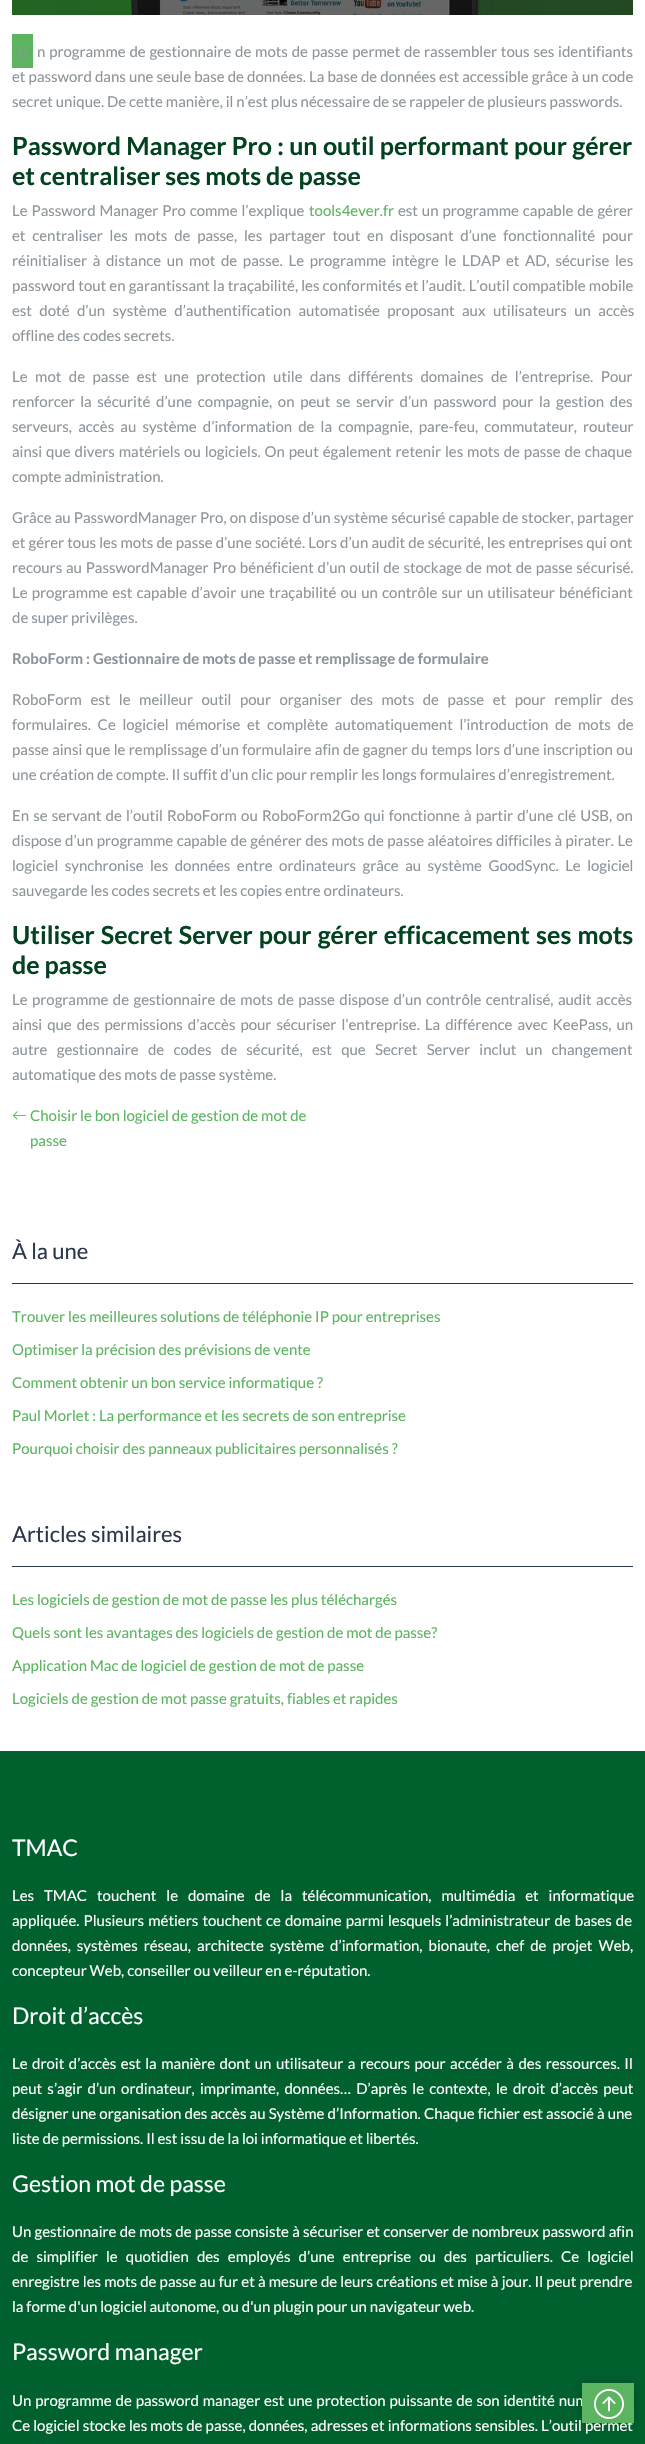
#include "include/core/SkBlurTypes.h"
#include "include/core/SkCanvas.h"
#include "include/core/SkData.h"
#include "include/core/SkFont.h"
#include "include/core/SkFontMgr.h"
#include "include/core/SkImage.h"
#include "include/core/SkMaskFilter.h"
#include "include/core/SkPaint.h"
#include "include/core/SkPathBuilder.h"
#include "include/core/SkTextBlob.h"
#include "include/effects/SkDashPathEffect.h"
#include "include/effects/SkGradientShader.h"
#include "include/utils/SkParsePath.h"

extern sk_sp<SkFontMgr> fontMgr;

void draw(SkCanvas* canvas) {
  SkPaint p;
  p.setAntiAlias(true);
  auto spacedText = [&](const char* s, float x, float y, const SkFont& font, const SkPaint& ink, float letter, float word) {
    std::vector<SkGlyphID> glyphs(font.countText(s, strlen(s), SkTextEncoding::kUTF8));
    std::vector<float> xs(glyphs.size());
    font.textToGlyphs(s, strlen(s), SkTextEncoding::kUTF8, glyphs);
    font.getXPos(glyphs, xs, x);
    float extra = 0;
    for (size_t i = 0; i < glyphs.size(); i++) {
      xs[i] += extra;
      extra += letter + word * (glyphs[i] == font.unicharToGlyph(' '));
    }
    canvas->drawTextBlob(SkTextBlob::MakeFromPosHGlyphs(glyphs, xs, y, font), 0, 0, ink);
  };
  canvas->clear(SK_ColorWHITE);
  canvas->drawImageRect(SkImages::DeferredFromEncodedData(SkData::MakeFromFileName("images/1.png")), SkRect::MakeLTRB(12, 0, 633, 15), SkSamplingOptions());
  p.setColor(SkColorSetRGB(92, 180, 96));
  canvas->drawRect(SkRect::MakeLTRB(12, 34, 33, 68), p);
  canvas->drawImageRect(SkImages::DeferredFromEncodedData(SkData::MakeFromFileName("images/2.png")), SkRect::MakeLTRB(13, 1111, 26, 1120), SkSamplingOptions());
  p.setColor(SkColorSetRGB(42, 55, 76));
  canvas->drawRect(SkRect::MakeLTRB(12, 1283, 633, 1284), p);
  canvas->drawRect(SkRect::MakeLTRB(12, 1566, 633, 1567), p);
  p.setColor(SkColorSetRGB(0, 97, 46));
  canvas->drawRect(SkRect::MakeLTRB(0, 1751, 645, 2444), p);
  p.setColor(SkColorSetARGB(51, 0, 0, 0));
  p.setMaskFilter(SkMaskFilter::MakeBlur(kNormal_SkBlurStyle, 5));
  canvas->drawRect(SkRect::MakeLTRB(581, 2382, 635, 2424), p);
  p.setMaskFilter(nullptr);
  SkFont font1(fontMgr->matchFamilyStyle("Noto Sans", SkFontStyle::Normal()), 15);
  font1.setSubpixel(true);
  p.setColor(SkColorSetRGB(141, 149, 154));
  canvas->drawString("U", 17, 57, font1, p);
  SkFont font2(fontMgr->matchFamilyStyle("Lato", SkFontStyle::Normal()), 15);
  font2.setSubpixel(true);
  spacedText("n programme de gestionnaire de mots de passe permet de rassembler tous ses identifiants", 37, 57, font2, p, 0, 0.9f);
  spacedText("et password dans une seule base de données. La base de données est accessible grâce à un code", 12, 82, font2, p, 0, 0.25f);
  canvas->drawString("secret unique. De cette manière, il n’est plus nécessaire de se rappeler de plusieurs passwords.", 12, 107, font2, p);
  SkFont font3(fontMgr->matchFamilyStyle("Lato", SkFontStyle::Bold()), 25);
  font3.setSubpixel(true);
  p.setColor(SkColorSetRGB(2, 66, 32));
  spacedText("Password Manager Pro : un outil performant pour gérer", 12, 155, font3, p, 0, 0.5f);
  canvas->drawString("et centraliser ses mots de passe", 12, 185, font3, p);
  p.setColor(SkColorSetRGB(141, 149, 154));
  spacedText("Le Password Manager Pro comme l’explique", 12, 216, font2, p, 0, 1);
  p.setColor(SkColorSetRGB(92, 180, 96));
  canvas->drawString("tools4ever.fr", 309, 216, font2, p);
  p.setColor(SkColorSetRGB(141, 149, 154));
  spacedText("est un programme capable de gérer", 398, 216, font2, p, 0, 1);
  spacedText("et centraliser les mots de passe, les partager tout en disposant d’une fonctionnalité pour", 12, 241, font2, p, 0, 3.9f);
  spacedText("réinitialiser à distance un mot de passe. Le programme intègre le LDAP et AD, sécurise les", 12, 266, font2, p, 0, 2.75f);
  spacedText("password tout en garantissant la traçabilité, les conformités et l’audit. L’outil compatible mobile", 12, 291, font2, p, 0, 0.25f);
  spacedText("est doté d’un système d’authentification automatisée proposant aux utilisateurs un accès", 12, 316, font2, p, 0, 4.5f);
  canvas->drawString("offline des codes secrets.", 12, 341, font2, p);
  spacedText("Le mot de passe est une protection utile dans différents domaines de l’entreprise. Pour", 12, 382, font2, p, 0, 4.6f);
  spacedText("renforcer la sécurité d’une compagnie, on peut se servir d’un password pour la gestion des", 12, 407, font2, p, 0, 2.75f);
  spacedText("serveurs, accès au système d’information de la compagnie, pare-feu, commutateur, routeur", 12, 432, font2, p, 0, 3.25f);
  spacedText("ainsi que divers matériels ou logiciels. On peut également retenir les mots de passe de chaque", 12, 457, font2, p, 0, 1);
  canvas->drawString("compte administration.", 12, 482, font2, p);
  spacedText("Grâce au PasswordManager Pro, on dispose d’un système sécurisé capable de stocker, partager", 12, 523, font2, p, 0, 0.25f);
  spacedText("et gérer tous les mots de passe d’une société. Lors d’un audit de sécurité, les entreprises qui ont", 12, 548, font2, p, 0, 0.25f);
  spacedText("recours au PasswordManager Pro bénéficient d’un outil de stockage de mot de passe sécurisé.", 12, 573, font2, p, 0, 0.9f);
  spacedText("Le programme est capable d’avoir une traçabilité ou un contrôle sur un utilisateur bénéficiant", 12, 598, font2, p, 0, 1.25f);
  canvas->drawString("de super privilèges.", 12, 623, font2, p);
  SkFont font4(fontMgr->matchFamilyStyle("Lato", SkFontStyle::Bold()), 15);
  font4.setSubpixel(true);
  canvas->drawString("RoboForm : Gestionnaire de mots de passe et remplissage de formulaire", 12, 664, font4, p);
  spacedText("RoboForm est le meilleur outil pour organiser des mots de passe et pour remplir des", 12, 705, font2, p, 0, 5.6f);
  spacedText("formulaires. Ce logiciel mémorise et complète automatiquement l’introduction de mots de", 12, 730, font2, p, 0, 3.75f);
  spacedText("passe ainsi que le remplissage d’un formulaire afin de gagner du temps lors d’une inscription ou", 12, 755, font2, p, 0, 0.5f);
  canvas->drawString("une création de compte. Il suffit d’un clic pour remplir les longs formulaires d’enregistrement.", 12, 780, font2, p);
  spacedText("En se servant de l’outil RoboForm ou RoboForm2Go qui fonctionne à partir d’une clé USB, on", 12, 821, font2, p, 0, 1.25f);
  spacedText("dispose d’un programme capable de générer des mots de passe aléatoires difficiles à pirater. Le", 12, 846, font2, p, 0, 0.5f);
  spacedText("logiciel synchronise les données entre ordinateurs grâce au système GoodSync. Le logiciel", 12, 871, font2, p, 0, 3.6f);
  canvas->drawString("sauvegarde les codes secrets et les copies entre ordinateurs.", 12, 896, font2, p);
  p.setColor(SkColorSetRGB(2, 66, 32));
  spacedText("Utiliser Secret Server pour gérer efficacement ses mots", 12, 944, font3, p, 0, 1.25f);
  canvas->drawString("de passe", 12, 974, font3, p);
  p.setColor(SkColorSetRGB(141, 149, 154));
  spacedText("Le programme de gestionnaire de mots de passe dispose d’un contrôle centralisé, audit accès", 12, 1005, font2, p, 0, 1.5f);
  spacedText("ainsi que des permissions d’accès pour sécuriser l’entreprise. La différence avec KeePass, un", 12, 1030, font2, p, 0, 2.1f);
  spacedText("autre gestionnaire de codes de sécurité, est que Secret Server inclut un changement", 12, 1055, font2, p, 0, 6.4f);
  canvas->drawString("automatique des mots de passe système.", 12, 1080, font2, p);
  p.setColor(SkColorSetRGB(92, 180, 96));
  canvas->drawString("Choisir le bon logiciel de gestion de mot de", 30, 1121, font2, p);
  canvas->drawString("passe", 30, 1146, font2, p);
  SkFont font5(fontMgr->matchFamilyStyle("Lato", SkFontStyle::Normal()), 22);
  font5.setSubpixel(true);
  p.setColor(SkColorSetRGB(42, 55, 76));
  canvas->drawString("À la une", 12, 1259, font5, p);
  p.setColor(SkColorSetRGB(92, 180, 96));
  canvas->drawString("Trouver les meilleures solutions de téléphonie IP pour entreprises", 12, 1322, font2, p);
  canvas->drawString("Optimiser la précision des prévisions de vente", 12, 1355, font2, p);
  canvas->drawString("Comment obtenir un bon service informatique ?", 12, 1388, font2, p);
  canvas->drawString("Paul Morlet : La performance et les secrets de son entreprise", 12, 1421, font2, p);
  canvas->drawString("Pourquoi choisir des panneaux publicitaires personnalisés ?", 12, 1454, font2, p);
  p.setColor(SkColorSetRGB(42, 55, 76));
  canvas->drawString("Articles similaires", 12, 1542, font5, p);
  p.setColor(SkColorSetRGB(92, 180, 96));
  canvas->drawString("Les logiciels de gestion de mot de passe les plus téléchargés", 12, 1605, font2, p);
  canvas->drawString("Quels sont les avantages des logiciels de gestion de mot de passe ?", 12, 1638, font2, p);
  canvas->drawString("Application Mac de logiciel de gestion de mot de passe", 12, 1671, font2, p);
  canvas->drawString("Logiciels de gestion de mot passe gratuits, fiables et rapides", 12, 1704, font2, p);
  SkFont font6(fontMgr->matchFamilyStyle("Lato", SkFontStyle::Normal()), 23);
  font6.setSubpixel(true);
  p.setColor(SK_ColorWHITE);
  canvas->drawString("TMAC", 12, 1856, font6, p);
  spacedText("Les TMAC touchent le domaine de la télécommunication, multimédia et informatique", 12, 1901, font2, p, 0, 7);
  spacedText("appliquée. Plusieurs métiers touchent ce domaine parmi lesquels l’administrateur de bases de", 12, 1926, font2, p, 0, 1.25f);
  spacedText("données, systèmes réseau, architecte système d’information, bionaute, chef de projet Web,", 12, 1951, font2, p, 0, 3.1f);
  canvas->drawString("concepteur Web, conseiller ou veilleur en e-réputation.", 12, 1976, font2, p);
  canvas->drawString("Droit d’accès", 12, 2024, font6, p);
  spacedText("Le droit d’accès est la manière dont un utilisateur a recours pour accéder à des ressources. Il", 12, 2069, font2, p, 0, 1.6f);
  spacedText("peut s’agir d’un ordinateur, imprimante, données… D’après le contexte, le droit d’accès peut", 12, 2094, font2, p, 0, 2.4f);
  spacedText("désigner une organisation des accès au Système d’Information. Chaque fichier est associé à une", 12, 2119, font2, p, 0, 0.25f);
  canvas->drawString("liste de permissions. Il est issu de la loi informatique et libertés.", 12, 2144, font2, p);
  canvas->drawString("Gestion mot de passe", 12, 2192, font6, p);
  spacedText("Un gestionnaire de mots de passe consiste à sécuriser et conserver de nombreux password afin", 12, 2237, font2, p, 0, 0.4f);
  spacedText("de simplifier le quotidien des employés d’une entreprise ou des particuliers. Ce logiciel", 12, 2262, font2, p, 0, 5.25f);
  spacedText("enregistre les mots de passe au fur et à mesure de leurs créations et mise à jour. Il peut prendre", 12, 2287, font2, p, 0, 0.3f);
  canvas->drawString("la forme d'un logiciel autonome, ou d'un plugin pour un navigateur web.", 12, 2312, font2, p);
  canvas->drawString("Password manager", 12, 2360, font6, p);
  spacedText("Un programme de password manager est une protection puissante de son identité num", 12, 2406, font2, p, 0, 1);
  spacedText("Ce logiciel stocke les mots de passe, données, adresses et informations sensibles. L’outil permet", 12, 2431, font2, p, 0, 0.25f);
  p.setColor(SkColorSetRGB(92, 180, 96));
  canvas->drawRect(SkRect::MakeLTRB(582, 2383, 634, 2423), p);
  canvas->drawImageRect(SkImages::DeferredFromEncodedData(SkData::MakeFromFileName("images/3.png")), SkRect::MakeLTRB(594, 2389, 624, 2419), SkSamplingOptions());
}
